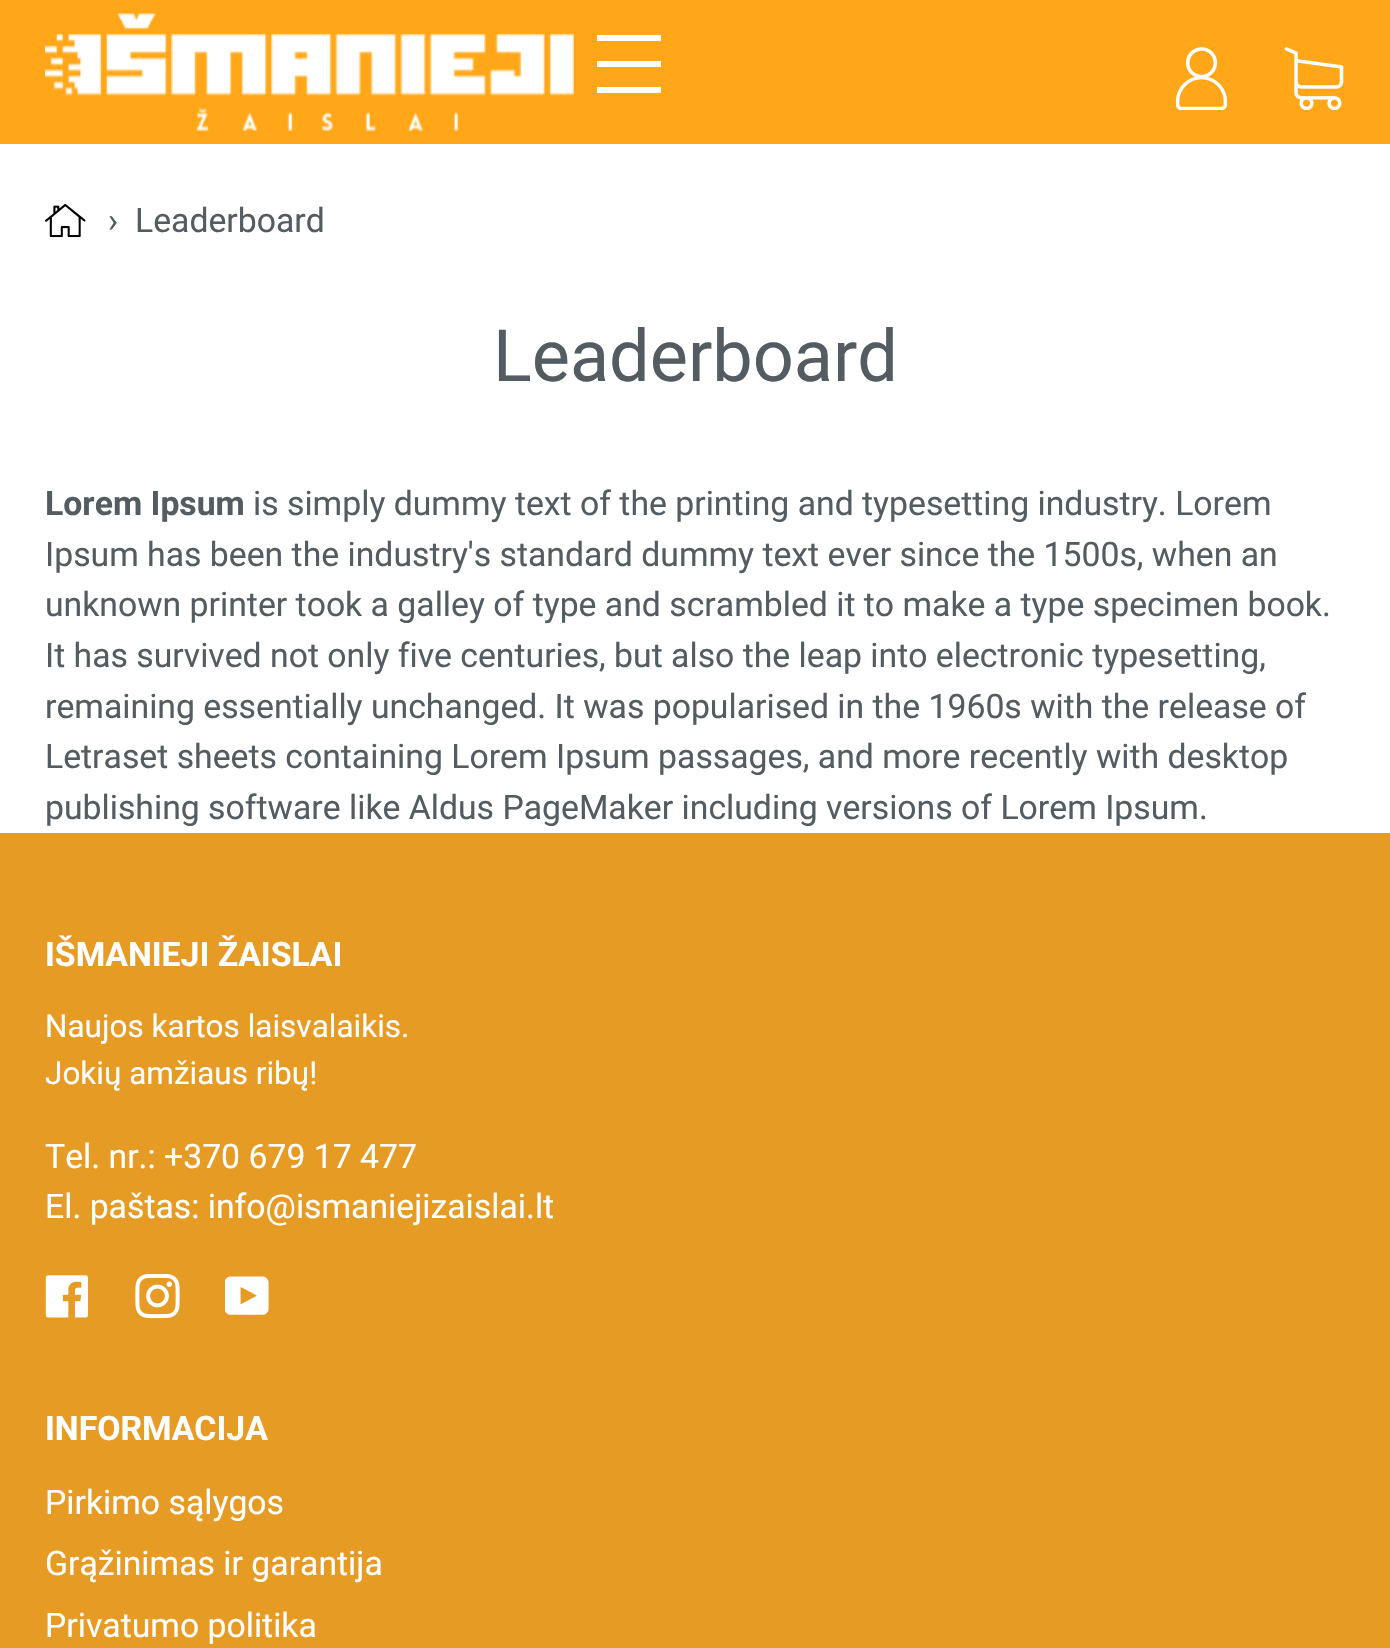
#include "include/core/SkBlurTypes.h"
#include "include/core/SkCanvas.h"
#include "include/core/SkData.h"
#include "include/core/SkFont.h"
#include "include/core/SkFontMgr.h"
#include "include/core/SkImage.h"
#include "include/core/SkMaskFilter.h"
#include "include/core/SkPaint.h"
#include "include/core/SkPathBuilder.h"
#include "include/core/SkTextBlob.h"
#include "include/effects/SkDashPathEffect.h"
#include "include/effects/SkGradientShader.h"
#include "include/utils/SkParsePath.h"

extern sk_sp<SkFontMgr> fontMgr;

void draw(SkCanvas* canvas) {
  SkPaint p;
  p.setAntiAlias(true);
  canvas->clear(SK_ColorWHITE);
  p.setColor(SkColorSetRGB(255, 167, 24));
  canvas->drawRect(SkRect::MakeLTRB(0, 0, 1390, 144), p);
  canvas->drawImageRect(SkImages::DeferredFromEncodedData(SkData::MakeFromFileName("images/1.png")), SkRect::MakeLTRB(45, 13, 574, 131), SkSamplingOptions());
  p.setColor(SK_ColorWHITE);
  canvas->drawRect(SkRect::MakeLTRB(597, 35, 661, 41), p);
  canvas->drawRect(SkRect::MakeLTRB(597, 61, 661, 67), p);
  canvas->drawRect(SkRect::MakeLTRB(597, 87, 661, 93), p);
  canvas->drawImageRect(SkImages::DeferredFromEncodedData(SkData::MakeFromFileName("images/2.png")), SkRect::MakeLTRB(1175, 47, 1228, 110), SkSamplingOptions());
  canvas->drawImageRect(SkImages::DeferredFromEncodedData(SkData::MakeFromFileName("images/3.png")), SkRect::MakeLTRB(1284, 47, 1344, 110), SkSamplingOptions());
  canvas->drawImageRect(SkImages::DeferredFromEncodedData(SkData::MakeFromFileName("images/4.png")), SkRect::MakeLTRB(45, 203, 86, 238), SkSamplingOptions());
  p.setColor(SkColorSetRGB(230, 156, 36));
  canvas->drawRect(SkRect::MakeLTRB(0, 833, 1390, 1648), p);
  canvas->drawImageRect(SkImages::DeferredFromEncodedData(SkData::MakeFromFileName("images/5.png")), SkRect::MakeLTRB(45, 1275, 88, 1318), SkSamplingOptions());
  canvas->drawImageRect(SkImages::DeferredFromEncodedData(SkData::MakeFromFileName("images/6.png")), SkRect::MakeLTRB(135, 1274, 180, 1319), SkSamplingOptions());
  canvas->drawImageRect(SkImages::DeferredFromEncodedData(SkData::MakeFromFileName("images/7.png")), SkRect::MakeLTRB(225, 1276, 269, 1315), SkSamplingOptions());
  SkFont font1(fontMgr->matchFamilyStyle("Roboto", SkFontStyle::Normal()), 33.75f);
  font1.setSubpixel(true);
  p.setColor(SkColorSetRGB(84, 92, 98));
  canvas->drawString("›", 108, 232, font1, p);
  canvas->drawString("Leaderboard", 135, 232, font1, p);
  SkFont font2(fontMgr->matchFamilyStyle("Roboto", SkFontStyle::Normal()), 72);
  font2.setSubpixel(true);
  canvas->drawString("Leaderboard", 493, 381, font2, p);
  SkFont font3(fontMgr->matchFamilyStyle("Roboto", SkFontStyle::Bold()), 33.75f);
  font3.setSubpixel(true);
  canvas->drawString("Lorem Ipsum", 45, 515, font3, p);
  canvas->drawString("is simply dummy text of the printing and typesetting industry. Lorem", 253, 515, font1, p);
  canvas->drawString("Ipsum has been the industry's standard dummy text ever since the 1500s, when an", 45, 566, font1, p);
  canvas->drawString("unknown printer took a galley of type and scrambled it to make a type specimen book.", 45, 616, font1, p);
  canvas->drawString("It has survived not only five centuries, but also the leap into electronic typesetting,", 45, 667, font1, p);
  canvas->drawString("remaining essentially unchanged. It was popularised in the 1960s with the release of", 45, 718, font1, p);
  canvas->drawString("Letraset sheets containing Lorem Ipsum passages, and more recently with desktop", 45, 768, font1, p);
  canvas->drawString("publishing software like Aldus PageMaker including versions of Lorem Ipsum.", 45, 819, font1, p);
  p.setColor(SK_ColorWHITE);
  canvas->drawString("IŠMANIEJI ŽAISLAI", 45, 966, font3, p);
  SkFont font4(fontMgr->matchFamilyStyle("Roboto", SkFontStyle::Normal()), 31.5f);
  font4.setSubpixel(true);
  canvas->drawString("Naujos kartos laisvalaikis.", 45, 1037, font4, p);
  canvas->drawString("Jokių amžiaus ribų!", 45, 1084, font4, p);
  canvas->drawString("Tel. nr.: +370 679 17 477", 45, 1168, font1, p);
  canvas->drawString("El. paštas: info@ismaniejizaislai.lt", 45, 1218, font1, p);
  canvas->drawString("INFORMACIJA", 45, 1440, font3, p);
  canvas->drawString("Pirkimo sąlygos", 45, 1514, font1, p);
  canvas->drawString("Grąžinimas ir garantija", 45, 1575, font1, p);
  canvas->drawString("Privatumo politika", 45, 1637, font1, p);
}
